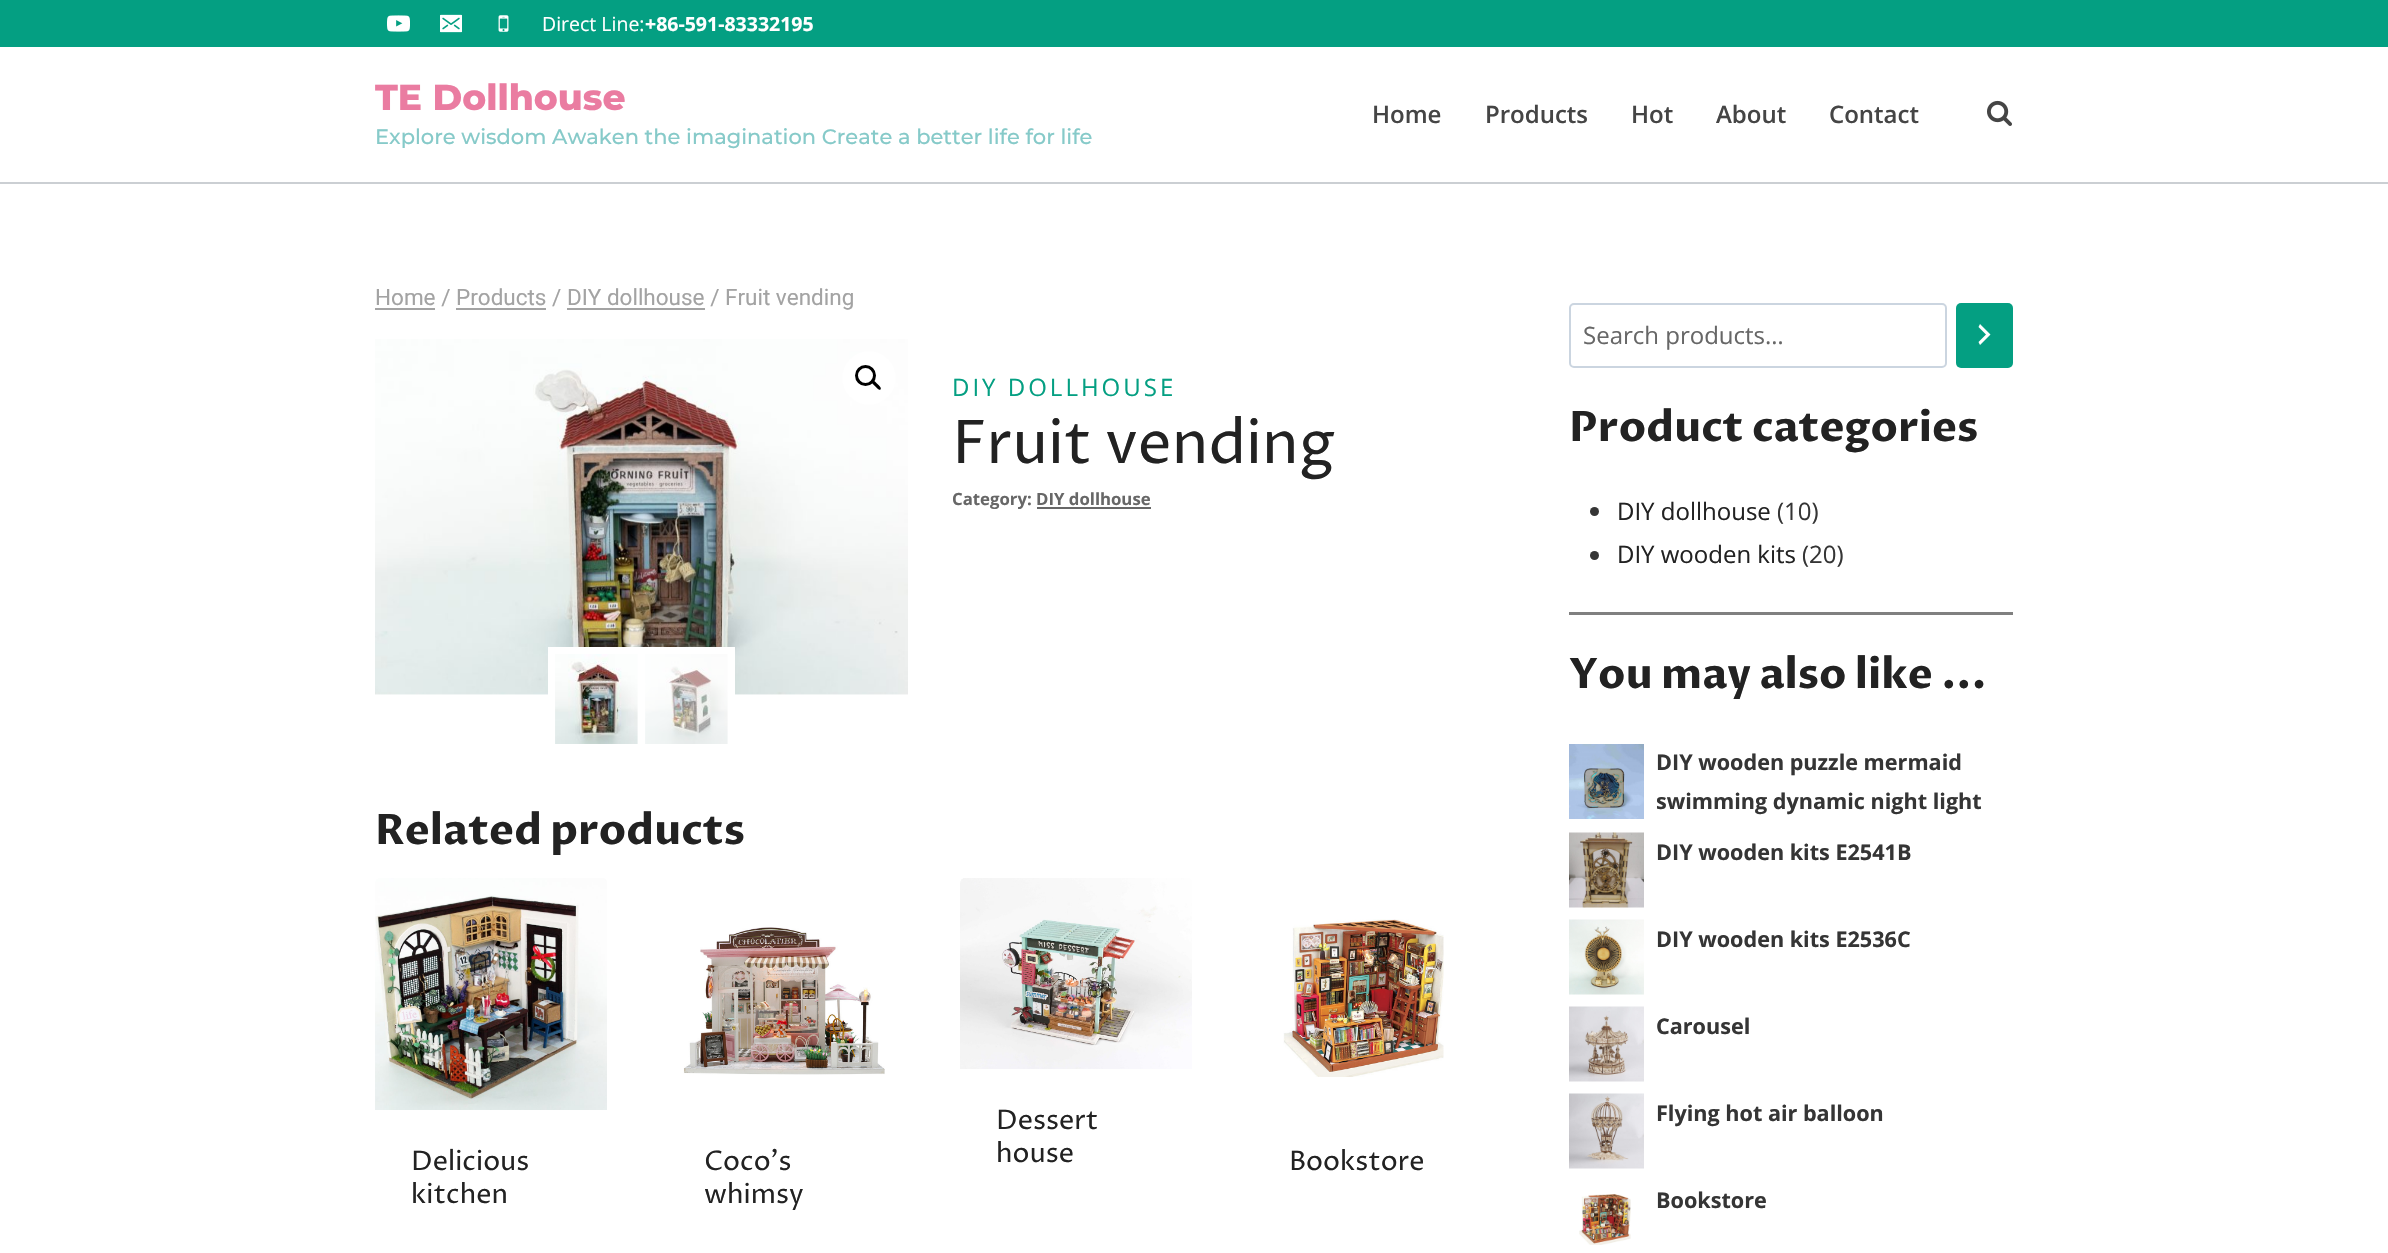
#include "include/core/SkBlurTypes.h"
#include "include/core/SkCanvas.h"
#include "include/core/SkData.h"
#include "include/core/SkFont.h"
#include "include/core/SkFontMgr.h"
#include "include/core/SkImage.h"
#include "include/core/SkMaskFilter.h"
#include "include/core/SkPaint.h"
#include "include/core/SkPathBuilder.h"
#include "include/core/SkTextBlob.h"
#include "include/effects/SkDashPathEffect.h"
#include "include/effects/SkGradientShader.h"
#include "include/utils/SkParsePath.h"

extern sk_sp<SkFontMgr> fontMgr;

void draw(SkCanvas* canvas) {
  SkPaint p;
  p.setAntiAlias(true);
  auto spacedText = [&](const char* s, float x, float y, const SkFont& font, const SkPaint& ink, float letter, float word) {
    std::vector<SkGlyphID> glyphs(font.countText(s, strlen(s), SkTextEncoding::kUTF8));
    std::vector<float> xs(glyphs.size());
    font.textToGlyphs(s, strlen(s), SkTextEncoding::kUTF8, glyphs);
    font.getXPos(glyphs, xs, x);
    float extra = 0;
    for (size_t i = 0; i < glyphs.size(); i++) {
      xs[i] += extra;
      extra += letter + word * (glyphs[i] == font.unicharToGlyph(' '));
    }
    canvas->drawTextBlob(SkTextBlob::MakeFromPosHGlyphs(glyphs, xs, y, font), 0, 0, ink);
  };
  canvas->clear(SK_ColorWHITE);
  p.setColor(SkColorSetRGB(4, 159, 130));
  canvas->drawRect(SkRect::MakeLTRB(0, 0, 2388, 47), p);
  canvas->drawImageRect(SkImages::DeferredFromEncodedData(SkData::MakeFromFileName("images/1.png")), SkRect::MakeLTRB(387, 15, 410, 32), SkSamplingOptions());
  canvas->drawImageRect(SkImages::DeferredFromEncodedData(SkData::MakeFromFileName("images/2.png")), SkRect::MakeLTRB(440, 14, 462, 33), SkSamplingOptions());
  canvas->drawImageRect(SkImages::DeferredFromEncodedData(SkData::MakeFromFileName("images/3.png")), SkRect::MakeLTRB(498, 15, 509, 32), SkSamplingOptions());
  p.setColor(SkColorSetRGB(203, 207, 211));
  canvas->drawRect(SkRect::MakeLTRB(0, 182, 2388, 184), p);
  canvas->drawImageRect(SkImages::DeferredFromEncodedData(SkData::MakeFromFileName("images/4.png")), SkRect::MakeLTRB(1987, 100, 2012, 126), SkSamplingOptions());
  p.setColor(SkColorSetRGB(163, 163, 163));
  canvas->drawRect(SkRect::MakeLTRB(375, 308, 435, 310), p);
  canvas->drawRect(SkRect::MakeLTRB(456, 308, 546, 310), p);
  canvas->drawRect(SkRect::MakeLTRB(567, 308, 705, 310), p);
  canvas->drawImageRect(SkImages::DeferredFromEncodedData(SkData::MakeFromFileName("images/5.png")), SkRect::MakeLTRB(375, 339, 908, 695), SkSamplingOptions());
  p.setColor(SK_ColorWHITE);
  canvas->drawCircle(869, 378, 27, p);
  p.setStyle(SkPaint::kStroke_Style);
  p.setStrokeWidth(3);
  p.setColor(SK_ColorBLACK);
  canvas->drawCircle(865.5f, 375.5f, 9, p);
  p.setStyle(SkPaint::kFill_Style);
  canvas->drawPath(SkPathBuilder().moveTo(872, 381).cubicTo(873.5f, 379, 876.5f, 383, 877.5f, 384).cubicTo(878.5f, 385, 882, 387.5f, 880.5f, 389.5f).cubicTo(879, 391, 876, 387, 875, 386).cubicTo(874.5f, 385.5f, 870.5f, 382.5f, 872, 381).close().detach(), p);
  p.setColor(SK_ColorWHITE);
  canvas->drawRect(SkRect::MakeLTRB(548, 647, 735, 695), p);
  canvas->drawImageRect(SkImages::DeferredFromEncodedData(SkData::MakeFromFileName("images/6.png")), SkRect::MakeLTRB(555, 654, 638, 744), SkSamplingOptions());
  canvas->drawImageRect(SkImages::DeferredFromEncodedData(SkData::MakeFromFileName("images/7.png")), SkRect::MakeLTRB(645, 654, 728, 744), SkSamplingOptions());
  p.setColor(SkColorSetRGB(103, 103, 103));
  canvas->drawRect(SkRect::MakeLTRB(1037, 507, 1151, 509), p);
  canvas->drawImageRect(SkImages::DeferredFromEncodedData(SkData::MakeFromFileName("images/8.png")), SkRect::MakeLTRB(960, 878, 1192, 1069), SkSamplingOptions());
  canvas->drawImageRect(SkImages::DeferredFromEncodedData(SkData::MakeFromFileName("images/9.png")), SkRect::MakeLTRB(375, 878, 607, 1110), SkSamplingOptions());
  canvas->drawImageRect(SkImages::DeferredFromEncodedData(SkData::MakeFromFileName("images/10.png")), SkRect::MakeLTRB(683, 927, 885, 1075), SkSamplingOptions());
  canvas->drawImageRect(SkImages::DeferredFromEncodedData(SkData::MakeFromFileName("images/11.png")), SkRect::MakeLTRB(1283, 919, 1444, 1077), SkSamplingOptions());
  p.setStyle(SkPaint::kStroke_Style);
  p.setStrokeWidth(2);
  p.setColor(SkColorSetRGB(203, 213, 224));
  canvas->drawRoundRect(SkRect::MakeLTRB(1570, 304, 1946, 367), 4, 4, p);
  p.setStyle(SkPaint::kFill_Style);
  p.setColor(SkColorSetRGB(4, 159, 130));
  canvas->drawRoundRect(SkRect::MakeLTRB(1956, 303, 2013, 368), 5, 5, p);
  p.setColor(SK_ColorWHITE);
  canvas->drawPath(SkPathBuilder().moveTo(1978.5f, 342).lineTo(1986, 334.5f).lineTo(1978.5f, 327).lineTo(1980, 324).lineTo(1990.5f, 334.5f).lineTo(1980, 345).close().detach(), p);
  p.setColor(SkColorSetRGB(53, 53, 53));
  canvas->drawCircle(1594.5f, 511.5f, 4.5f, p);
  canvas->drawCircle(1594.5f, 555.5f, 4.5f, p);
  p.setColor(SkColorSetRGB(128, 128, 128));
  canvas->drawRect(SkRect::MakeLTRB(1569, 612, 2013, 615), p);
  canvas->drawImageRect(SkImages::DeferredFromEncodedData(SkData::MakeFromFileName("images/12.png")), SkRect::MakeLTRB(1569, 744, 1644, 819), SkSamplingOptions());
  canvas->drawImageRect(SkImages::DeferredFromEncodedData(SkData::MakeFromFileName("images/13.png")), SkRect::MakeLTRB(1569, 832, 1644, 908), SkSamplingOptions());
  canvas->drawImageRect(SkImages::DeferredFromEncodedData(SkData::MakeFromFileName("images/14.png")), SkRect::MakeLTRB(1569, 919, 1644, 995), SkSamplingOptions());
  canvas->drawImageRect(SkImages::DeferredFromEncodedData(SkData::MakeFromFileName("images/15.png")), SkRect::MakeLTRB(1569, 1006, 1644, 1082), SkSamplingOptions());
  canvas->drawImageRect(SkImages::DeferredFromEncodedData(SkData::MakeFromFileName("images/16.png")), SkRect::MakeLTRB(1569, 1093, 1644, 1169), SkSamplingOptions());
  canvas->drawImageRect(SkImages::DeferredFromEncodedData(SkData::MakeFromFileName("images/17.png")), SkRect::MakeLTRB(1579, 1194, 1631, 1245), SkSamplingOptions());
  SkFont font1(fontMgr->matchFamilyStyle("Open Sans", SkFontStyle::Normal()), 19.5f);
  font1.setSubpixel(true);
  p.setColor(SK_ColorWHITE);
  canvas->drawString("Direct Line:", 542, 31, font1, p);
  SkFont font2(fontMgr->matchFamilyStyle("Open Sans", SkFontStyle::Bold()), 19.5f);
  font2.setSubpixel(true);
  canvas->drawString("+86-591-83332195", 645, 31, font2, p);
  SkFont font3(fontMgr->matchFamilyStyle("Montserrat", SkFontStyle(800, SkFontStyle::kNormal_Width, SkFontStyle::kUpright_Slant)), 36);
  font3.setSubpixel(true);
  p.setColor(SkColorSetRGB(234, 124, 161));
  canvas->drawString("TE Dollhouse", 375, 110, font3, p);
  SkFont font4(fontMgr->matchFamilyStyle("Montserrat", SkFontStyle(500, SkFontStyle::kNormal_Width, SkFontStyle::kUpright_Slant)), 21);
  font4.setSubpixel(true);
  p.setColor(SkColorSetRGB(134, 202, 201));
  canvas->drawString("Explore wisdom Awaken the imagination Create a better life for life", 375, 144, font4, p);
  SkFont font5(fontMgr->matchFamilyStyle("Open Sans", SkFontStyle(600, SkFontStyle::kNormal_Width, SkFontStyle::kUpright_Slant)), 24);
  font5.setSubpixel(true);
  p.setColor(SkColorSetRGB(69, 69, 69));
  canvas->drawString("Home", 1372, 123, font5, p);
  canvas->drawString("Products", 1485, 123, font5, p);
  canvas->drawString("Hot", 1631, 123, font5, p);
  canvas->drawString("About", 1716, 123, font5, p);
  canvas->drawString("Contact", 1829, 123, font5, p);
  SkFont font6(fontMgr->matchFamilyStyle("Roboto", SkFontStyle::Normal()), 22.5f);
  font6.setSubpixel(true);
  p.setColor(SkColorSetRGB(163, 163, 163));
  canvas->drawString("Home / Products / DIY dollhouse / Fruit vending", 375, 305, font6, p);
  SkFont font7(fontMgr->matchFamilyStyle("Open Sans", SkFontStyle::Normal()), 24);
  font7.setSubpixel(true);
  p.setColor(SkColorSetRGB(4, 159, 130));
  spacedText("DIY DOLLHOUSE", 952, 396, font7, p, 3, 0);
  SkFont font8(fontMgr->matchFamilyStyle("Proza Libre", SkFontStyle::Normal()), 60);
  font8.setSubpixel(true);
  p.setColor(SkColorSetRGB(34, 34, 34));
  canvas->drawString("Fruit vending", 952, 463, font8, p);
  SkFont font9(fontMgr->matchFamilyStyle("Open Sans", SkFontStyle::Bold()), 16.75f);
  font9.setSubpixel(true);
  p.setColor(SkColorSetRGB(103, 103, 103));
  canvas->drawString("Category: DIY dollhouse", 952, 505, font9, p);
  SkFont font10(fontMgr->matchFamilyStyle("Proza Libre", SkFontStyle::Bold()), 42);
  font10.setSubpixel(true);
  p.setColor(SkColorSetRGB(34, 34, 34));
  canvas->drawString("Related products", 375, 844, font10, p);
  SkFont font11(fontMgr->matchFamilyStyle("Proza Libre", SkFontStyle::Normal()), 27);
  font11.setSubpixel(true);
  canvas->drawString("Dessert", 996, 1129, font11, p);
  canvas->drawString("house", 996, 1162, font11, p);
  canvas->drawString("Delicious", 411, 1170, font11, p);
  canvas->drawString("kitchen", 411, 1203, font11, p);
  canvas->drawString("Coco’s", 704, 1170, font11, p);
  canvas->drawString("whimsy", 704, 1203, font11, p);
  canvas->drawString("Bookstore", 1289, 1170, font11, p);
  p.setColor(SkColorSetRGB(103, 103, 103));
  canvas->drawString("Search products…", 1583, 344, font7, p);
  p.setColor(SkColorSetRGB(34, 34, 34));
  canvas->drawString("Product categories", 1569, 441, font10, p);
  canvas->drawString("DIY dollhouse", 1617, 520, font7, p);
  p.setColor(SkColorSetRGB(53, 53, 53));
  canvas->drawString("(10)", 1777, 520, font7, p);
  p.setColor(SkColorSetRGB(34, 34, 34));
  canvas->drawString("DIY wooden kits", 1617, 563, font7, p);
  p.setColor(SkColorSetRGB(53, 53, 53));
  canvas->drawString("(20)", 1802, 563, font7, p);
  p.setColor(SkColorSetRGB(34, 34, 34));
  canvas->drawString("You may also like ...", 1569, 688, font10, p);
  SkFont font12(fontMgr->matchFamilyStyle("Open Sans", SkFontStyle::Bold()), 21.6f);
  font12.setSubpixel(true);
  p.setColor(SkColorSetRGB(53, 53, 53));
  canvas->drawString("DIY wooden puzzle mermaid", 1656, 770, font12, p);
  canvas->drawString("swimming dynamic night light", 1656, 809, font12, p);
  canvas->drawString("DIY wooden kits E2541B", 1656, 860, font12, p);
  canvas->drawString("DIY wooden kits E2536C", 1656, 947, font12, p);
  canvas->drawString("Carousel", 1656, 1034, font12, p);
  canvas->drawString("Flying hot air balloon", 1656, 1121, font12, p);
  canvas->drawString("Bookstore", 1656, 1208, font12, p);
}
